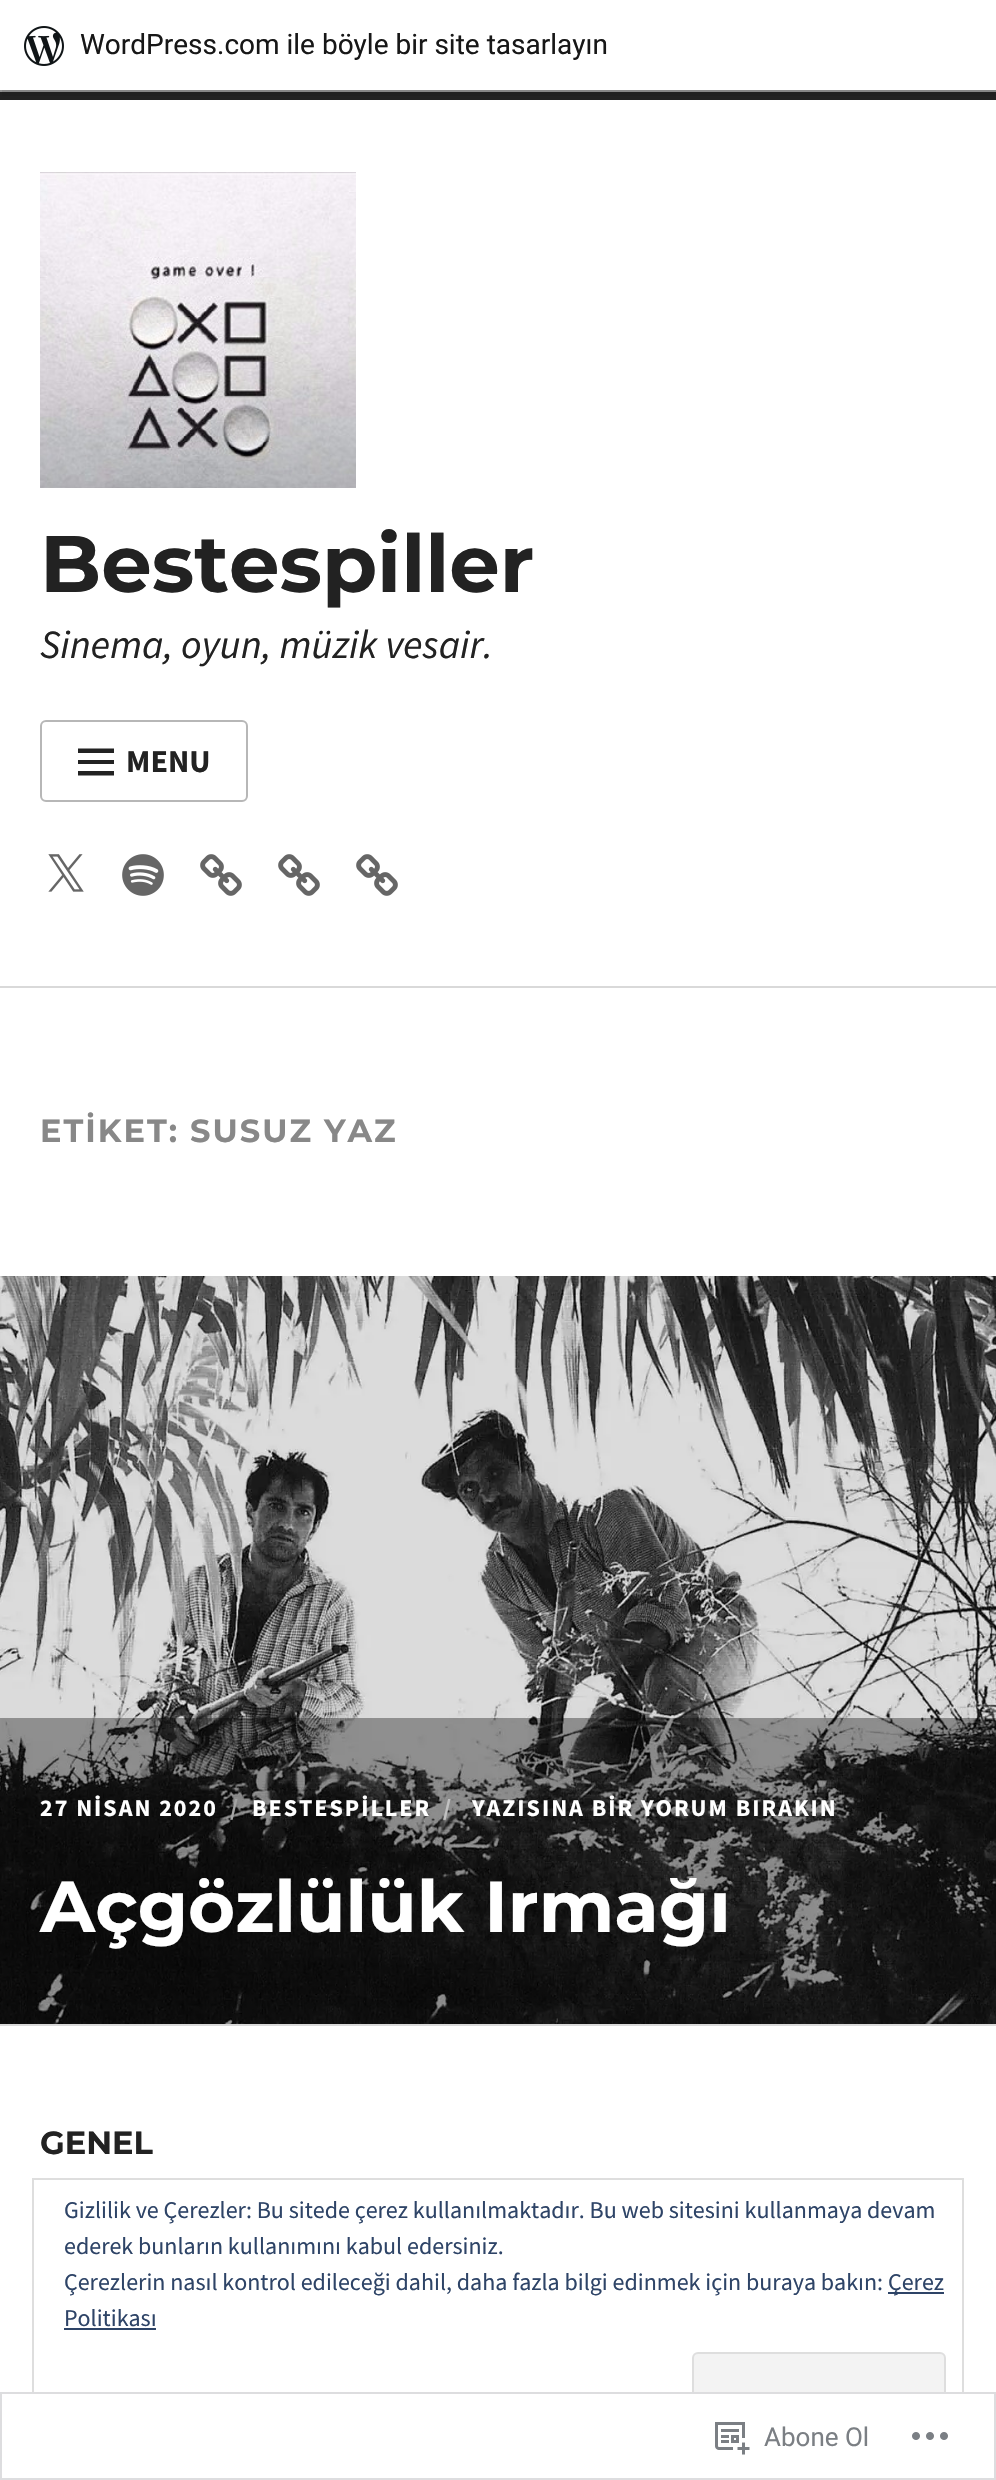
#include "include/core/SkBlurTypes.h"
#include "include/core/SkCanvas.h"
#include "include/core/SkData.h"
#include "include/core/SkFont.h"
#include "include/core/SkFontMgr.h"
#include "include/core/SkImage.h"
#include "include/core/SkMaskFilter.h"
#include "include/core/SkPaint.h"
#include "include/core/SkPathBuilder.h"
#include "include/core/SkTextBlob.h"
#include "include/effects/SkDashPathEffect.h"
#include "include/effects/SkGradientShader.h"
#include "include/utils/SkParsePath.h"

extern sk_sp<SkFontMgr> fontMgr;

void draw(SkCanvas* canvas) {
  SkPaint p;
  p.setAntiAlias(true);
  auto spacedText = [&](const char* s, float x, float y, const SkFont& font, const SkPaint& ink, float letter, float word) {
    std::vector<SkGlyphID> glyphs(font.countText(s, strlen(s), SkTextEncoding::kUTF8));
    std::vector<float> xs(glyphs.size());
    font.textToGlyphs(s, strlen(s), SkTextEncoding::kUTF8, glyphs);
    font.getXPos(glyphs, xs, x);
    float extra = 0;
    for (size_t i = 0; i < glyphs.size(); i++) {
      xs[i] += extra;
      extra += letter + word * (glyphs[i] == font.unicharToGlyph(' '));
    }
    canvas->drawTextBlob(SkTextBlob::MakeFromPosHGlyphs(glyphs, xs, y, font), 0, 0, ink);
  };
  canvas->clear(SK_ColorWHITE);
  p.setColor(SkColorSetRGB(34, 34, 34));
  canvas->drawRect(SkRect::MakeLTRB(0, 92, 996, 100), p);
  p.setColor(SkColorSetRGB(145, 145, 145));
  canvas->drawRect(SkRect::MakeLTRB(0, 90, 996, 92), p);
  p.setColor(SkColorSetARGB(20, 0, 0, 0));
  canvas->drawPath(SkPathBuilder().moveTo(2, 90).lineTo(2, 96).lineTo(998, 96).lineTo(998, 6).lineTo(996, 6).lineTo(996, 90).close().detach(), p);
  canvas->drawImageRect(SkImages::DeferredFromEncodedData(SkData::MakeFromFileName("images/1.png")), SkRect::MakeLTRB(24, 26, 64, 66), SkSamplingOptions());
  canvas->drawImageRect(SkImages::DeferredFromEncodedData(SkData::MakeFromFileName("images/2.png")), SkRect::MakeLTRB(40, 172, 356, 488), SkSamplingOptions());
  p.setStyle(SkPaint::kStroke_Style);
  p.setStrokeWidth(2);
  p.setColor(SkColorSetRGB(183, 183, 183));
  canvas->drawRoundRect(SkRect::MakeLTRB(41, 721, 247, 801), 5, 5, p);
  p.setStyle(SkPaint::kFill_Style);
  p.setColor(SkColorSetRGB(34, 34, 34));
  canvas->drawPath(SkPathBuilder().moveTo(78, 775.5f).lineTo(114, 775.5f).lineTo(114, 771).lineTo(78, 771).close().moveTo(78, 748.5f).lineTo(78, 753).lineTo(114, 753).lineTo(114, 748.5f).close().moveTo(78, 764).lineTo(114, 764).lineTo(114, 760).lineTo(78, 760).close().detach(), p);
  canvas->drawImageRect(SkImages::DeferredFromEncodedData(SkData::MakeFromFileName("images/3.png")), SkRect::MakeLTRB(48, 854, 84, 892), SkSamplingOptions());
  canvas->drawImageRect(SkImages::DeferredFromEncodedData(SkData::MakeFromFileName("images/4.png")), SkRect::MakeLTRB(122, 854, 164, 896), SkSamplingOptions());
  canvas->drawImageRect(SkImages::DeferredFromEncodedData(SkData::MakeFromFileName("images/5.png")), SkRect::MakeLTRB(200, 854, 242, 896), SkSamplingOptions());
  canvas->drawImageRect(SkImages::DeferredFromEncodedData(SkData::MakeFromFileName("images/5.png")), SkRect::MakeLTRB(278, 854, 320, 896), SkSamplingOptions());
  canvas->drawImageRect(SkImages::DeferredFromEncodedData(SkData::MakeFromFileName("images/5.png")), SkRect::MakeLTRB(356, 854, 398, 896), SkSamplingOptions());
  p.setColor(SkColorSetRGB(217, 217, 217));
  canvas->drawRect(SkRect::MakeLTRB(0, 986, 996, 988), p);
  canvas->drawImageRect(SkImages::DeferredFromEncodedData(SkData::MakeFromFileName("images/6.png")), SkRect::MakeLTRB(0, 1276, 996, 2024), SkSamplingOptions());
  p.setColor(SkColorSetARGB(89, 0, 0, 0));
  canvas->drawRect(SkRect::MakeLTRB(0, 1718, 996, 2024), p);
  p.setColor(SkColorSetRGB(217, 217, 217));
  canvas->drawRect(SkRect::MakeLTRB(0, 2024, 996, 2026), p);
  p.setStyle(SkPaint::kStroke_Style);
  p.setColor(SkColorSetRGB(222, 222, 222));
  canvas->drawRect(SkRect::MakeLTRB(33, 2179, 963, 2447), p);
  p.setStyle(SkPaint::kFill_Style);
  p.setColor(SkColorSetRGB(46, 68, 103));
  canvas->drawRect(SkRect::MakeLTRB(888, 2292, 944, 2294), p);
  canvas->drawRect(SkRect::MakeLTRB(64, 2328, 156, 2330), p);
  p.setColor(SkColorSetRGB(243, 243, 243));
  canvas->drawRoundRect(SkRect::MakeLTRB(693, 2353, 945, 2429), 5, 5, p);
  p.setStyle(SkPaint::kStroke_Style);
  p.setColor(SkColorSetRGB(222, 222, 222));
  canvas->drawRoundRect(SkRect::MakeLTRB(693, 2353, 945, 2429), 5, 5, p);
  p.setStyle(SkPaint::kFill_Style);
  p.setColor(SkColorSetARGB(250, 255, 255, 255));
  canvas->drawRect(SkRect::MakeLTRB(32, 2392, 964, 2448), p);
  p.setStyle(SkPaint::kStroke_Style);
  p.setColor(SkColorSetARGB(250, 220, 220, 222));
  canvas->drawRect(SkRect::MakeLTRB(1, 2393, 995, 2479), p);
  canvas->drawImageRect(SkImages::DeferredFromEncodedData(SkData::MakeFromFileName("images/7.png")), SkRect::MakeLTRB(715, 2422, 750, 2455), SkSamplingOptions());
  canvas->drawImageRect(SkImages::DeferredFromEncodedData(SkData::MakeFromFileName("images/8.png")), SkRect::MakeLTRB(912, 2432, 948, 2440), SkSamplingOptions());
  SkFont font1(fontMgr->matchFamilyStyle("Roboto", SkFontStyle::Normal()), 28);
  font1.setSubpixel(true);
  p.setStyle(SkPaint::kFill_Style);
  p.setColor(SkColorSetRGB(23, 23, 23));
  canvas->drawString("WordPress.com ile böyle bir site tasarlayın", 80, 54, font1, p);
  SkFont font2(fontMgr->matchFamilyStyle("Montserrat", SkFontStyle::Bold()), 80);
  font2.setSubpixel(true);
  p.setColor(SkColorSetRGB(34, 34, 34));
  canvas->drawString("Bestespiller", 40, 592, font2, p);
  SkFont font3(fontMgr->matchFamilyStyle("Source Sans Pro", SkFontStyle::Italic()), 40);
  font3.setSubpixel(true);
  canvas->drawString("Sinema, oyun, müzik vesair.", 40, 658, font3, p);
  SkFont font4(fontMgr->matchFamilyStyle("Source Sans Pro", SkFontStyle::Bold()), 32);
  font4.setSubpixel(true);
  canvas->drawString("MENU", 126, 772, font4, p);
  SkFont font5(fontMgr->matchFamilyStyle("Montserrat", SkFontStyle::Bold()), 32);
  font5.setSubpixel(true);
  p.setColor(SkColorSetRGB(136, 136, 136));
  spacedText("ETİKET: SUSUZ YAZ", 40, 1142, font5, p, 2, 0);
  SkFont font6(fontMgr->matchFamilyStyle("Source Sans Pro", SkFontStyle::Bold()), 24);
  font6.setSubpixel(true);
  p.setColor(SK_ColorWHITE);
  spacedText("27 NİSAN 2020", 40, 1816, font6, p, 2, 0);
  p.setColor(SkColorSetRGB(164, 164, 164));
  spacedText("/", 230, 1816, font6, p, 2, 0);
  p.setColor(SK_ColorWHITE);
  spacedText("BESTESPİLLER", 252, 1816, font6, p, 2, 0);
  p.setColor(SkColorSetRGB(193, 193, 193));
  spacedText("/", 443, 1816, font6, p, 2, 0);
  p.setColor(SK_ColorWHITE);
  spacedText("YAZISINA BİR YORUM BIRAKIN", 472, 1816, font6, p, 2, 0);
  SkFont font7(fontMgr->matchFamilyStyle("Montserrat", SkFontStyle::Bold()), 72);
  font7.setSubpixel(true);
  canvas->drawString("Açgözlülük Irmağı", 40, 1932, font7, p);
  p.setColor(SkColorSetRGB(34, 34, 34));
  canvas->drawString("GENEL", 40, 2154, font5, p);
  SkFont font8(fontMgr->matchFamilyStyle("Source Sans Pro", SkFontStyle::Normal()), 24);
  font8.setSubpixel(true);
  p.setColor(SkColorSetRGB(46, 68, 103));
  canvas->drawString("Gizlilik ve Çerezler: Bu sitede çerez kullanılmaktadır. Bu web sitesini kullanmaya devam", 64, 2218, font8, p);
  canvas->drawString("ederek bunların kullanımını kabul edersiniz.", 64, 2254, font8, p);
  canvas->drawString("Çerezlerin nasıl kontrol edileceği dahil, daha fazla bilgi edinmek için buraya bakın:", 64, 2290, font8, p);
  canvas->drawString("Çerez", 888, 2290, font8, p);
  canvas->drawString("Politikası", 64, 2326, font8, p);
  SkFont font9(fontMgr->matchFamilyStyle("Roboto", SkFontStyle::Normal()), 26);
  font9.setSubpixel(true);
  p.setColor(SkColorSetRGB(123, 127, 132));
  canvas->drawString("Abone Ol", 764, 2446, font9, p);
}
